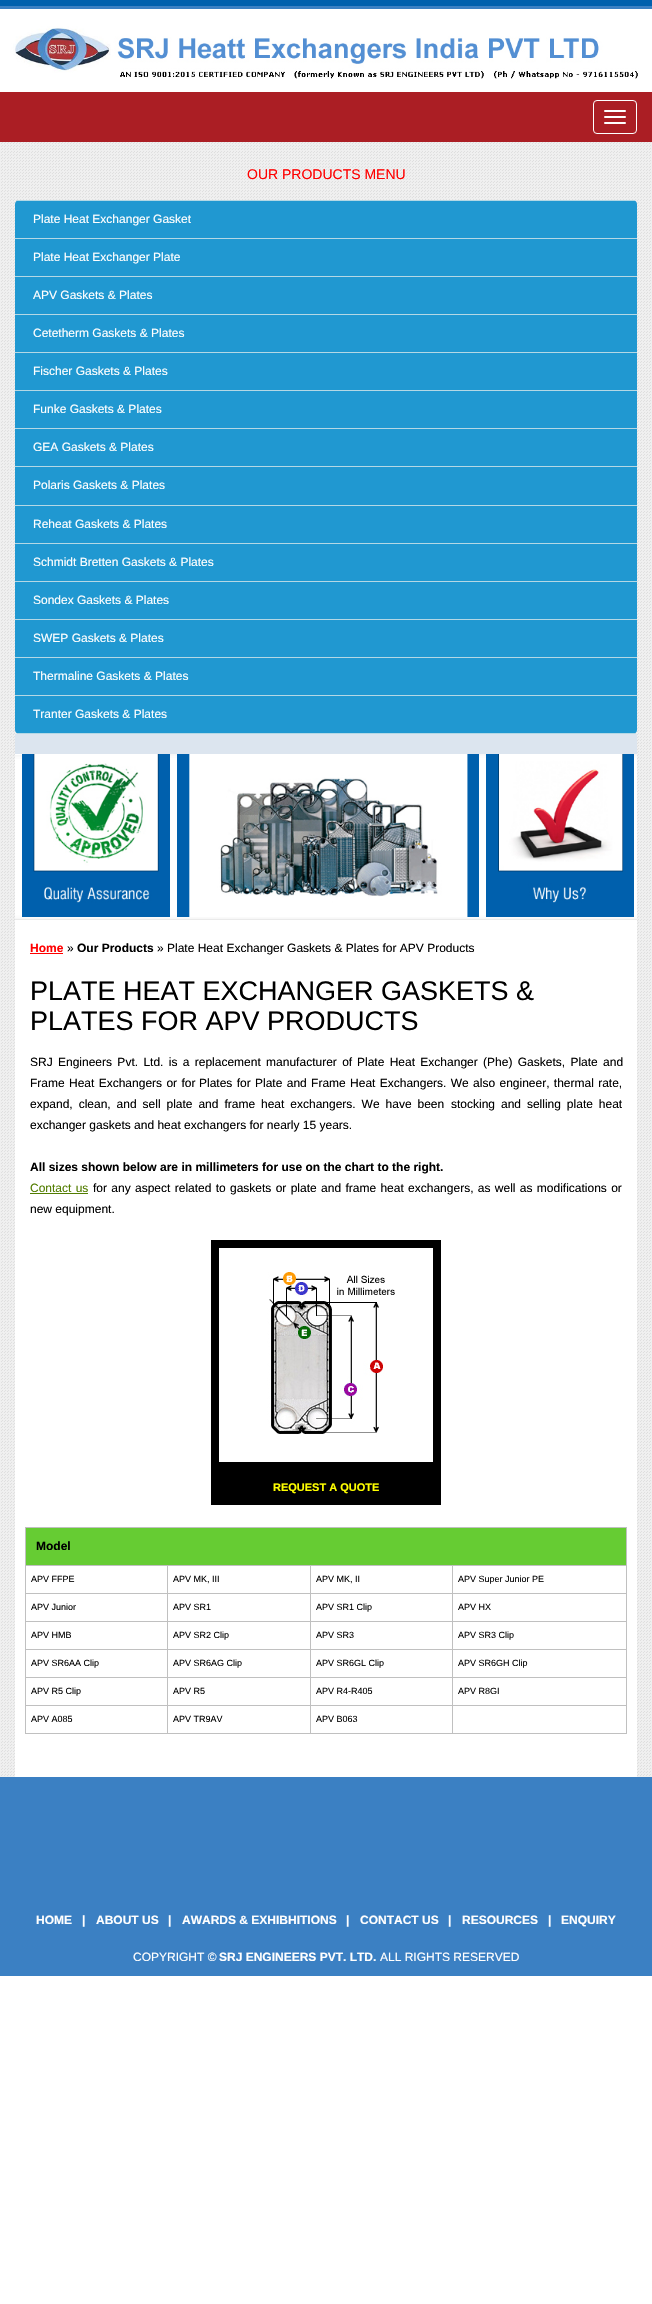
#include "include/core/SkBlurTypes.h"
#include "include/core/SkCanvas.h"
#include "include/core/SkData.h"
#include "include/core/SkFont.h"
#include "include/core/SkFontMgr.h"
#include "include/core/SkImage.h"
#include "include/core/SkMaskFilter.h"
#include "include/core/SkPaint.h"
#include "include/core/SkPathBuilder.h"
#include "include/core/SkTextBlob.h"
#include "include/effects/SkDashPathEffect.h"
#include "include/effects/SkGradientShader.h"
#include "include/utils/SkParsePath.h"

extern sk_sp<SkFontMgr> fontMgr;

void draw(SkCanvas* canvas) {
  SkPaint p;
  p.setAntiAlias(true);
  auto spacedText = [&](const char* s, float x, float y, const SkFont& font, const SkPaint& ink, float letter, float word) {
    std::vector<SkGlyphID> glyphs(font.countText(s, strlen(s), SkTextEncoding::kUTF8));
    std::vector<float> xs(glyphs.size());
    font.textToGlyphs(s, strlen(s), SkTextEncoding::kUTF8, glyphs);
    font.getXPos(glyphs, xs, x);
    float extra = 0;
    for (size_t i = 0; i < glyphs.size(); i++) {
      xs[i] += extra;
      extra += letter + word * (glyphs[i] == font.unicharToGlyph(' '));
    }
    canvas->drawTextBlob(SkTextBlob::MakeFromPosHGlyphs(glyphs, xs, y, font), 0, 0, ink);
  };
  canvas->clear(SK_ColorWHITE);
  canvas->drawImageRect(SkImages::DeferredFromEncodedData(SkData::MakeFromFileName("images/1.png")), SkRect::MakeLTRB(0, 0, 652, 79), SkSamplingOptions());
  p.setColor(SkColorSetRGB(171, 30, 36));
  canvas->drawRect(SkRect::MakeLTRB(0, 92, 652, 142), p);
  p.setStyle(SkPaint::kStroke_Style);
  p.setStrokeWidth(1);
  p.setColor(SK_ColorWHITE);
  canvas->drawRoundRect(SkRect::MakeLTRB(593.5f, 100.5f, 636.5f, 133.5f), 3.5f, 3.5f, p);
  p.setStyle(SkPaint::kFill_Style);
  canvas->drawRoundRect(SkRect::MakeLTRB(604, 110, 626, 112), 1, 1, p);
  canvas->drawRoundRect(SkRect::MakeLTRB(604, 116, 626, 118), 1, 1, p);
  canvas->drawRoundRect(SkRect::MakeLTRB(604, 122, 626, 124), 1, 1, p);
  canvas->drawImageRect(SkImages::DeferredFromEncodedData(SkData::MakeFromFileName("images/2.png")), SkRect::MakeLTRB(0, 142, 652, 1777), SkSamplingOptions());
  p.setColor(SkColorSetRGB(32, 152, 209));
  canvas->drawPath(SkPathBuilder().moveTo(19, 200).lineTo(633, 200).cubicTo(635, 200, 637, 202, 637, 204).lineTo(637, 239).lineTo(15, 239).lineTo(15, 204).cubicTo(15, 202, 17, 200, 19, 200).close().detach(), p);
  p.setColor(SkColorSetRGB(180, 216, 229));
  canvas->drawRect(SkRect::MakeLTRB(17, 200, 635, 201), p);
  p.setColor(SkColorSetRGB(32, 152, 209));
  canvas->drawRect(SkRect::MakeLTRB(15, 239, 637, 276), p);
  p.setColor(SkColorSetRGB(180, 216, 229));
  canvas->drawRect(SkRect::MakeLTRB(15, 238, 637, 239), p);
  p.setColor(SkColorSetRGB(32, 152, 209));
  canvas->drawRect(SkRect::MakeLTRB(15, 277, 637, 314), p);
  p.setColor(SkColorSetRGB(180, 216, 229));
  canvas->drawRect(SkRect::MakeLTRB(15, 276, 637, 277), p);
  p.setColor(SkColorSetRGB(32, 152, 209));
  canvas->drawRect(SkRect::MakeLTRB(15, 315, 637, 352), p);
  p.setColor(SkColorSetRGB(180, 216, 229));
  canvas->drawRect(SkRect::MakeLTRB(15, 314, 637, 315), p);
  p.setColor(SkColorSetRGB(32, 152, 209));
  canvas->drawRect(SkRect::MakeLTRB(15, 353, 637, 390), p);
  p.setColor(SkColorSetRGB(180, 216, 229));
  canvas->drawRect(SkRect::MakeLTRB(15, 352, 637, 353), p);
  p.setColor(SkColorSetRGB(32, 152, 209));
  canvas->drawRect(SkRect::MakeLTRB(15, 391, 637, 428), p);
  p.setColor(SkColorSetRGB(180, 216, 229));
  canvas->drawRect(SkRect::MakeLTRB(15, 390, 637, 391), p);
  p.setColor(SkColorSetRGB(32, 152, 209));
  canvas->drawRect(SkRect::MakeLTRB(15, 429, 637, 466), p);
  p.setColor(SkColorSetRGB(180, 216, 229));
  canvas->drawRect(SkRect::MakeLTRB(15, 428, 637, 429), p);
  p.setColor(SkColorSetRGB(32, 152, 209));
  canvas->drawRect(SkRect::MakeLTRB(15, 467, 637, 505), p);
  p.setColor(SkColorSetRGB(180, 216, 229));
  canvas->drawRect(SkRect::MakeLTRB(15, 466, 637, 467), p);
  p.setColor(SkColorSetRGB(32, 152, 209));
  canvas->drawRect(SkRect::MakeLTRB(15, 506, 637, 543), p);
  p.setColor(SkColorSetRGB(180, 216, 229));
  canvas->drawRect(SkRect::MakeLTRB(15, 505, 637, 506), p);
  p.setColor(SkColorSetRGB(32, 152, 209));
  canvas->drawRect(SkRect::MakeLTRB(15, 544, 637, 581), p);
  p.setColor(SkColorSetRGB(180, 216, 229));
  canvas->drawRect(SkRect::MakeLTRB(15, 543, 637, 544), p);
  p.setColor(SkColorSetRGB(32, 152, 209));
  canvas->drawRect(SkRect::MakeLTRB(15, 582, 637, 619), p);
  p.setColor(SkColorSetRGB(180, 216, 229));
  canvas->drawRect(SkRect::MakeLTRB(15, 581, 637, 582), p);
  p.setColor(SkColorSetRGB(32, 152, 209));
  canvas->drawRect(SkRect::MakeLTRB(15, 620, 637, 657), p);
  p.setColor(SkColorSetRGB(180, 216, 229));
  canvas->drawRect(SkRect::MakeLTRB(15, 619, 637, 620), p);
  p.setColor(SkColorSetRGB(32, 152, 209));
  canvas->drawRect(SkRect::MakeLTRB(15, 658, 637, 695), p);
  p.setColor(SkColorSetRGB(180, 216, 229));
  canvas->drawRect(SkRect::MakeLTRB(15, 657, 637, 658), p);
  p.setColor(SkColorSetRGB(32, 152, 209));
  canvas->drawPath(SkPathBuilder().moveTo(15, 695).lineTo(637, 695).lineTo(637, 730).cubicTo(637, 732, 635, 734, 633, 734).lineTo(19, 734).cubicTo(17, 734, 15, 732, 15, 730).close().detach(), p);
  p.setColor(SkColorSetRGB(180, 216, 229));
  canvas->drawRect(SkRect::MakeLTRB(15, 695, 637, 696), p);
  canvas->drawRect(SkRect::MakeLTRB(17, 733, 635, 734), p);
  p.setColor(SkColorSetRGB(220, 229, 239));
  canvas->drawRect(SkRect::MakeLTRB(15, 734, 637, 754), p);
  p.setColor(SK_ColorWHITE);
  canvas->drawRect(SkRect::MakeLTRB(15, 754, 637, 1777), p);
  canvas->drawImageRect(SkImages::DeferredFromEncodedData(SkData::MakeFromFileName("images/3.png")), SkRect::MakeLTRB(15, 755, 22, 920), SkSamplingOptions());
  canvas->drawImageRect(SkImages::DeferredFromEncodedData(SkData::MakeFromFileName("images/4.png")), SkRect::MakeLTRB(22, 754, 177, 920), SkSamplingOptions());
  canvas->drawImageRect(SkImages::DeferredFromEncodedData(SkData::MakeFromFileName("images/5.png")), SkRect::MakeLTRB(177, 754, 479, 920), SkSamplingOptions());
  canvas->drawImageRect(SkImages::DeferredFromEncodedData(SkData::MakeFromFileName("images/6.png")), SkRect::MakeLTRB(479, 754, 637, 920), SkSamplingOptions());
  p.setColor(SkColorSetRGB(255, 0, 0));
  canvas->drawRect(SkRect::MakeLTRB(30, 953, 63, 954), p);
  p.setColor(SkColorSetRGB(82, 125, 0));
  canvas->drawRect(SkRect::MakeLTRB(30, 1193, 88, 1194), p);
  canvas->drawImageRect(SkImages::DeferredFromEncodedData(SkData::MakeFromFileName("images/7.png")), SkRect::MakeLTRB(211, 1240, 441, 1470), SkSamplingOptions());
  p.setColor(SK_ColorBLACK);
  canvas->drawRect(SkRect::MakeLTRB(211, 1470, 441, 1505), p);
  p.setColor(SkColorSetRGB(192, 192, 192));
  canvas->drawRect(SkRect::MakeLTRB(25, 1527, 627, 1528), p);
  canvas->drawRect(SkRect::MakeLTRB(626, 1527, 627, 1734), p);
  canvas->drawRect(SkRect::MakeLTRB(25, 1733, 627, 1734), p);
  canvas->drawRect(SkRect::MakeLTRB(25, 1527, 26, 1734), p);
  p.setColor(SkColorSetRGB(102, 204, 51));
  canvas->drawRect(SkRect::MakeLTRB(26, 1528, 626, 1565), p);
  p.setColor(SkColorSetRGB(192, 192, 192));
  canvas->drawRect(SkRect::MakeLTRB(452, 1565, 627, 1566), p);
  canvas->drawRect(SkRect::MakeLTRB(452, 1593, 627, 1594), p);
  canvas->drawRect(SkRect::MakeLTRB(452, 1621, 627, 1622), p);
  canvas->drawRect(SkRect::MakeLTRB(452, 1649, 627, 1650), p);
  canvas->drawRect(SkRect::MakeLTRB(452, 1677, 627, 1678), p);
  canvas->drawRect(SkRect::MakeLTRB(452, 1705, 627, 1706), p);
  canvas->drawRect(SkRect::MakeLTRB(452, 1705, 453, 1734), p);
  canvas->drawRect(SkRect::MakeLTRB(310, 1705, 453, 1706), p);
  canvas->drawRect(SkRect::MakeLTRB(452, 1677, 453, 1706), p);
  canvas->drawRect(SkRect::MakeLTRB(310, 1677, 453, 1678), p);
  canvas->drawRect(SkRect::MakeLTRB(452, 1649, 453, 1678), p);
  canvas->drawRect(SkRect::MakeLTRB(310, 1649, 453, 1650), p);
  canvas->drawRect(SkRect::MakeLTRB(452, 1621, 453, 1650), p);
  canvas->drawRect(SkRect::MakeLTRB(310, 1621, 453, 1622), p);
  canvas->drawRect(SkRect::MakeLTRB(452, 1593, 453, 1622), p);
  canvas->drawRect(SkRect::MakeLTRB(310, 1593, 453, 1594), p);
  canvas->drawRect(SkRect::MakeLTRB(452, 1565, 453, 1594), p);
  canvas->drawRect(SkRect::MakeLTRB(310, 1565, 453, 1566), p);
  canvas->drawRect(SkRect::MakeLTRB(310, 1705, 311, 1734), p);
  canvas->drawRect(SkRect::MakeLTRB(167, 1705, 311, 1706), p);
  canvas->drawRect(SkRect::MakeLTRB(310, 1677, 311, 1706), p);
  canvas->drawRect(SkRect::MakeLTRB(167, 1677, 311, 1678), p);
  canvas->drawRect(SkRect::MakeLTRB(310, 1649, 311, 1678), p);
  canvas->drawRect(SkRect::MakeLTRB(167, 1649, 311, 1650), p);
  canvas->drawRect(SkRect::MakeLTRB(310, 1621, 311, 1650), p);
  canvas->drawRect(SkRect::MakeLTRB(167, 1621, 311, 1622), p);
  canvas->drawRect(SkRect::MakeLTRB(310, 1593, 311, 1622), p);
  canvas->drawRect(SkRect::MakeLTRB(167, 1593, 311, 1594), p);
  canvas->drawRect(SkRect::MakeLTRB(310, 1565, 311, 1594), p);
  canvas->drawRect(SkRect::MakeLTRB(167, 1565, 311, 1566), p);
  canvas->drawRect(SkRect::MakeLTRB(167, 1705, 168, 1734), p);
  canvas->drawRect(SkRect::MakeLTRB(25, 1705, 168, 1706), p);
  canvas->drawRect(SkRect::MakeLTRB(167, 1677, 168, 1706), p);
  canvas->drawRect(SkRect::MakeLTRB(25, 1677, 168, 1678), p);
  canvas->drawRect(SkRect::MakeLTRB(167, 1649, 168, 1678), p);
  canvas->drawRect(SkRect::MakeLTRB(25, 1649, 168, 1650), p);
  canvas->drawRect(SkRect::MakeLTRB(167, 1621, 168, 1650), p);
  canvas->drawRect(SkRect::MakeLTRB(25, 1621, 168, 1622), p);
  canvas->drawRect(SkRect::MakeLTRB(167, 1593, 168, 1622), p);
  canvas->drawRect(SkRect::MakeLTRB(25, 1593, 168, 1594), p);
  canvas->drawRect(SkRect::MakeLTRB(167, 1565, 168, 1594), p);
  canvas->drawRect(SkRect::MakeLTRB(25, 1565, 168, 1566), p);
  p.setColor(SkColorSetRGB(59, 128, 195));
  canvas->drawRect(SkRect::MakeLTRB(0, 1777, 652, 1976), p);
  SkFont font1(fontMgr->matchFamilyStyle("Liberation Sans", SkFontStyle::Normal()), 14);
  font1.setSubpixel(true);
  p.setColor(SkColorSetRGB(255, 0, 0));
  canvas->drawString("OUR PRODUCTS MENU", 247, 179, font1, p);
  SkFont font2(fontMgr->matchFamilyStyle("Liberation Sans", SkFontStyle::Normal()), 12);
  font2.setSubpixel(true);
  p.setColor(SK_ColorWHITE);
  canvas->drawString("Plate Heat Exchanger Gasket", 33, 223, font2, p);
  canvas->drawString("Plate Heat Exchanger Plate", 33, 261, font2, p);
  canvas->drawString("APV Gaskets & Plates", 33, 299, font2, p);
  canvas->drawString("Cetetherm Gaskets & Plates", 33, 337, font2, p);
  canvas->drawString("Fischer Gaskets & Plates", 33, 375, font2, p);
  canvas->drawString("Funke Gaskets & Plates", 33, 413, font2, p);
  canvas->drawString("GEA Gaskets & Plates", 33, 451, font2, p);
  canvas->drawString("Polaris Gaskets & Plates", 33, 489, font2, p);
  canvas->drawString("Reheat Gaskets & Plates", 33, 528, font2, p);
  canvas->drawString("Schmidt Bretten Gaskets & Plates", 33, 566, font2, p);
  canvas->drawString("Sondex Gaskets & Plates", 33, 604, font2, p);
  canvas->drawString("SWEP Gaskets & Plates", 33, 642, font2, p);
  canvas->drawString("Thermaline Gaskets & Plates", 33, 680, font2, p);
  canvas->drawString("Tranter Gaskets & Plates", 33, 718, font2, p);
  SkFont font3(fontMgr->matchFamilyStyle("Liberation Sans", SkFontStyle::Bold()), 12);
  font3.setSubpixel(true);
  p.setColor(SkColorSetRGB(255, 0, 0));
  canvas->drawString("Home", 30, 952, font3, p);
  p.setColor(SK_ColorBLACK);
  canvas->drawString("»", 67, 952, font2, p);
  canvas->drawString("Our Products", 77, 952, font3, p);
  canvas->drawString("» Plate Heat Exchanger Gaskets & Plates for APV Products", 157, 952, font2, p);
  SkFont font4(fontMgr->matchFamilyStyle("Liberation Sans", SkFontStyle::Normal()), 27);
  font4.setSubpixel(true);
  canvas->drawString("PLATE HEAT EXCHANGER GASKETS &", 30, 1000, font4, p);
  canvas->drawString("PLATES FOR APV PRODUCTS", 30, 1030, font4, p);
  spacedText("SRJ Engineers Pvt. Ltd. is a replacement manufacturer of", 30, 1066, font2, p, 0, 2);
  spacedText("Plate Heat Exchanger (Phe) Gaskets, Plate and", 357, 1066, font2, p, 0, 2);
  spacedText("Frame Heat Exchangers or for", 30, 1087, font2, p, 0, 1);
  spacedText("Plates for Plate and Frame Heat Exchangers. We also engineer, thermal rate,", 199, 1087, font2, p, 0, 1);
  spacedText("expand, clean, and sell plate and frame heat exchangers. We have been", 30, 1108, font2, p, 0, 2.6f);
  spacedText("stocking and selling plate heat", 451, 1108, font2, p, 0, 2.6f);
  canvas->drawString("exchanger gaskets and heat exchangers for nearly 15 years.", 30, 1129, font2, p);
  canvas->drawString("All sizes shown below are in millimeters for use on the chart to the right.", 30, 1171, font3, p);
  p.setColor(SkColorSetRGB(82, 125, 0));
  spacedText("Contact us", 30, 1192, font2, p, 0, 1);
  p.setColor(SK_ColorBLACK);
  spacedText("for any aspect related to", 93, 1192, font2, p, 0, 1);
  spacedText("gaskets or plate and frame heat exchangers, as well as modifications or", 230, 1192, font2, p, 0, 1);
  canvas->drawString("new equipment.", 30, 1213, font2, p);
  SkFont font5(fontMgr->matchFamilyStyle("Liberation Sans", SkFontStyle::Bold()), 11);
  font5.setSubpixel(true);
  p.setColor(SkColorSetRGB(255, 255, 0));
  canvas->drawString("REQUEST A QUOTE", 273, 1491, font5, p);
  p.setColor(SK_ColorBLACK);
  canvas->drawString("Model", 36, 1550, font3, p);
  SkFont font6(fontMgr->matchFamilyStyle("Liberation Sans", SkFontStyle::Normal()), 9);
  font6.setSubpixel(true);
  canvas->drawString("APV FFPE", 31, 1582, font6, p);
  canvas->drawString("APV MK, III", 173, 1582, font6, p);
  canvas->drawString("APV MK, II", 316, 1582, font6, p);
  canvas->drawString("APV Super Junior PE", 458, 1582, font6, p);
  canvas->drawString("APV Junior", 31, 1610, font6, p);
  canvas->drawString("APV SR1", 173, 1610, font6, p);
  canvas->drawString("APV SR1 Clip", 316, 1610, font6, p);
  canvas->drawString("APV HX", 458, 1610, font6, p);
  canvas->drawString("APV HMB", 31, 1638, font6, p);
  canvas->drawString("APV SR2 Clip", 173, 1638, font6, p);
  canvas->drawString("APV SR3", 316, 1638, font6, p);
  canvas->drawString("APV SR3 Clip", 458, 1638, font6, p);
  canvas->drawString("APV SR6AA Clip", 31, 1666, font6, p);
  canvas->drawString("APV SR6AG Clip", 173, 1666, font6, p);
  canvas->drawString("APV SR6GL Clip", 316, 1666, font6, p);
  canvas->drawString("APV SR6GH Clip", 458, 1666, font6, p);
  canvas->drawString("APV R5 Clip", 31, 1694, font6, p);
  canvas->drawString("APV R5", 173, 1694, font6, p);
  canvas->drawString("APV R4-R405", 316, 1694, font6, p);
  canvas->drawString("APV R8GI", 458, 1694, font6, p);
  canvas->drawString("APV A085", 31, 1722, font6, p);
  canvas->drawString("APV TR9AV", 173, 1722, font6, p);
  canvas->drawString("APV B063", 316, 1722, font6, p);
  p.setColor(SK_ColorWHITE);
  canvas->drawString("HOME", 36, 1924, font3, p);
  canvas->drawString("|", 82, 1924, font3, p);
  canvas->drawString("ABOUT US", 96, 1924, font3, p);
  canvas->drawString("|", 168, 1924, font3, p);
  canvas->drawString("AWARDS & EXHIBHITIONS", 182, 1924, font3, p);
  canvas->drawString("|", 346, 1924, font3, p);
  canvas->drawString("CONTACT US", 360, 1924, font3, p);
  canvas->drawString("|", 448, 1924, font3, p);
  canvas->drawString("RESOURCES", 462, 1924, font3, p);
  canvas->drawString("|", 548, 1924, font3, p);
  canvas->drawString("ENQUIRY", 561, 1924, font3, p);
  canvas->drawString("COPYRIGHT ©", 133, 1961, font2, p);
  canvas->drawString("SRJ ENGINEERS PVT. LTD.", 219, 1961, font3, p);
  canvas->drawString("ALL RIGHTS RESERVED", 380, 1961, font2, p);
}
